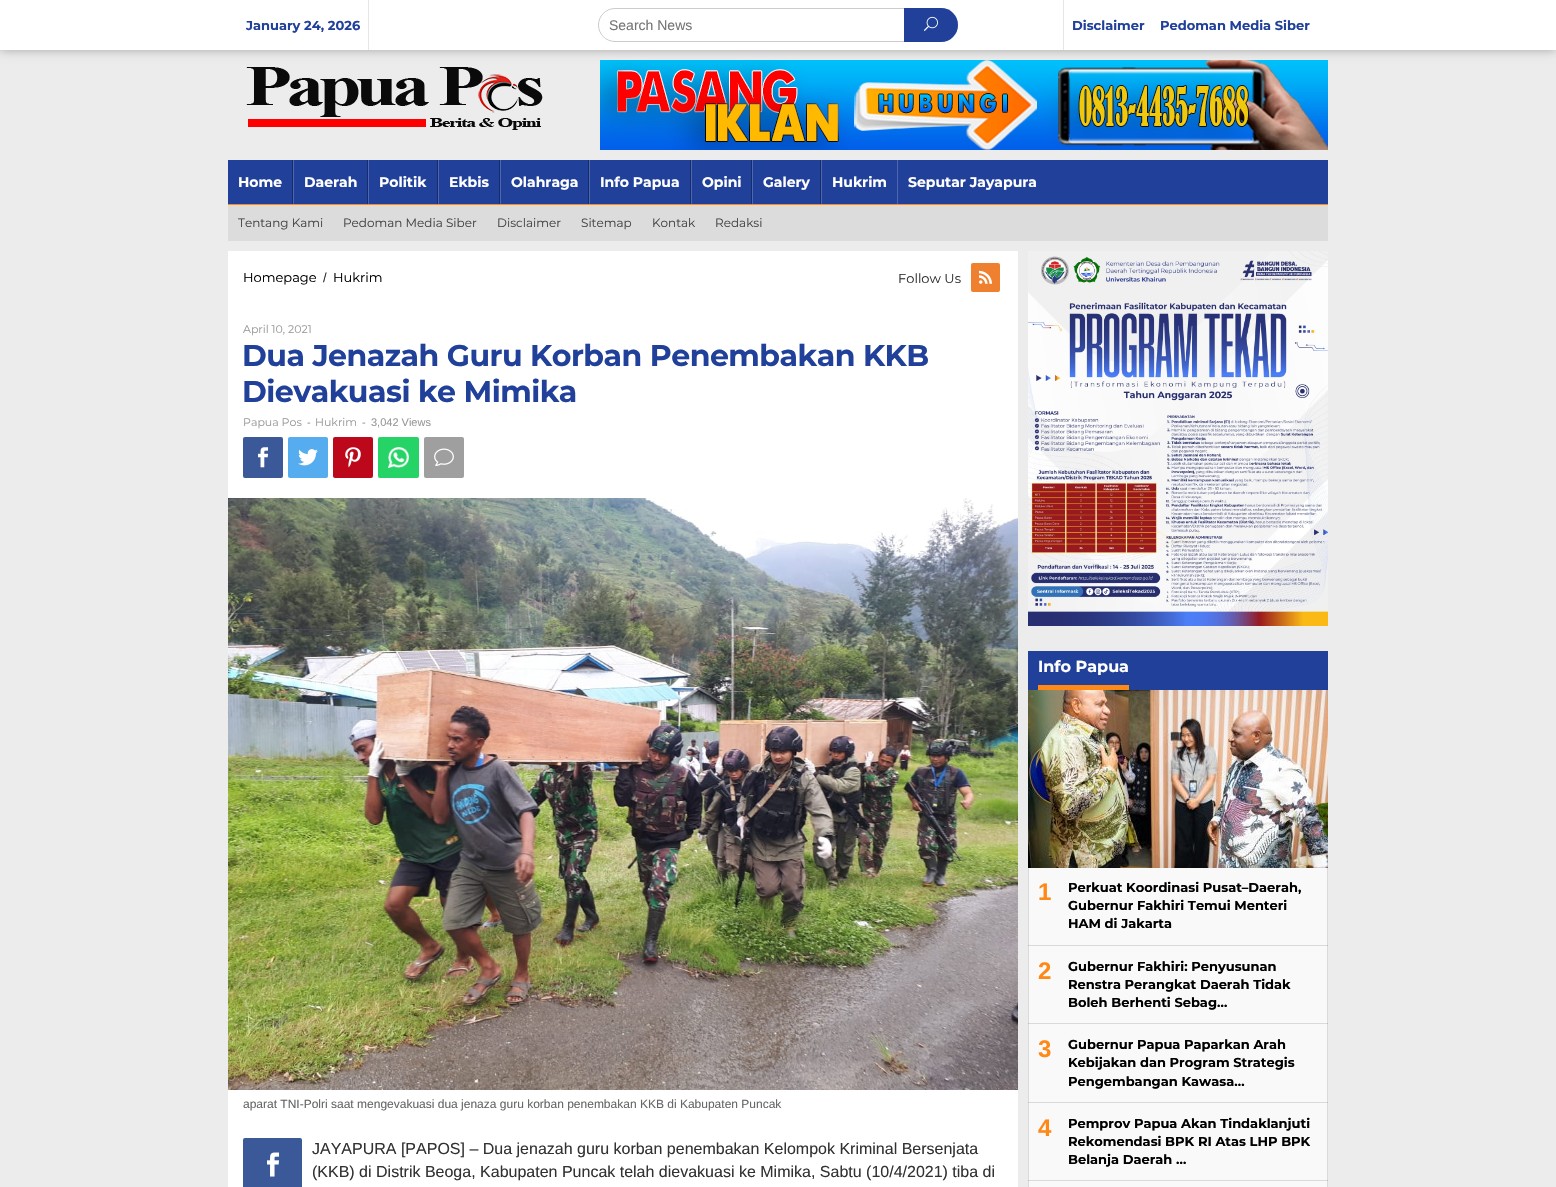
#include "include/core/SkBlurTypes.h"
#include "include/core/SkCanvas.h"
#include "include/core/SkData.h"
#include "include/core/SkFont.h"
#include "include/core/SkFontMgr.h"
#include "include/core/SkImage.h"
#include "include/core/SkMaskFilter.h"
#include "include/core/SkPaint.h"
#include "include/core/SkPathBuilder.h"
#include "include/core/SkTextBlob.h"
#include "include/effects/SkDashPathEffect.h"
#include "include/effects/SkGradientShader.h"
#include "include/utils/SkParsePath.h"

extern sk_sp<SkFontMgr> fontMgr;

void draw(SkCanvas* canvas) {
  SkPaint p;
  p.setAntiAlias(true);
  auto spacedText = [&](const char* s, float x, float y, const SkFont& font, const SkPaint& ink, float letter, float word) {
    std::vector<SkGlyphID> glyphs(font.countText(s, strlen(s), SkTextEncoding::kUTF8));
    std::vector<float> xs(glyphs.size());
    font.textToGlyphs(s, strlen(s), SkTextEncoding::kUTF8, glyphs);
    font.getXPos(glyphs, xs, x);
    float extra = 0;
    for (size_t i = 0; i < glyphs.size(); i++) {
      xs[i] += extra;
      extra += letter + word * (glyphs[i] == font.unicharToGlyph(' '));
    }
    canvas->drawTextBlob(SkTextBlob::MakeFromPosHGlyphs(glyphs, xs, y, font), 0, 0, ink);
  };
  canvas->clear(SkColorSetRGB(236, 236, 236));
  p.setColor(SkColorSetARGB(77, 0, 0, 0));
  p.setMaskFilter(SkMaskFilter::MakeBlur(kNormal_SkBlurStyle, 5));
  canvas->drawRect(SkRect::MakeLTRB(0, 0, 1556, 50), p);
  p.setMaskFilter(nullptr);
  p.setColor(SK_ColorWHITE);
  canvas->drawRect(SkRect::MakeLTRB(0, 0, 1556, 50), p);
  p.setColor(SkColorSetRGB(230, 230, 230));
  canvas->drawRect(SkRect::MakeLTRB(368, 0, 369, 50), p);
  p.setStyle(SkPaint::kStroke_Style);
  p.setStrokeWidth(1);
  p.setColor(SkColorSetRGB(204, 204, 204));
  canvas->drawRoundRect(SkRect::MakeLTRB(598.5f, 8.5f, 957.5f, 41.5f), 16.5f, 16.5f, p);
  p.setStyle(SkPaint::kFill_Style);
  p.setColor(SkColorSetRGB(32, 64, 154));
  canvas->drawPath(SkPathBuilder().moveTo(904, 8).lineTo(941, 8).cubicTo(950.5f, 8, 958, 15.5f, 958, 25).cubicTo(958, 34.5f, 950.5f, 42, 941, 42).lineTo(904, 42).close().detach(), p);
  canvas->drawImageRect(SkImages::DeferredFromEncodedData(SkData::MakeFromFileName("images/1.png")), SkRect::MakeLTRB(924, 16, 938, 31), SkSamplingOptions());
  p.setColor(SkColorSetRGB(230, 230, 230));
  canvas->drawRect(SkRect::MakeLTRB(1063, 0, 1064, 50), p);
  canvas->drawImageRect(SkImages::DeferredFromEncodedData(SkData::MakeFromFileName("images/2.png")), SkRect::MakeLTRB(246, 67, 543, 130), SkSamplingOptions());
  canvas->drawImageRect(SkImages::DeferredFromEncodedData(SkData::MakeFromFileName("images/3.png")), SkRect::MakeLTRB(600, 60, 1328, 150), SkSamplingOptions());
  p.setColor(SkColorSetRGB(32, 64, 154));
  canvas->drawRect(SkRect::MakeLTRB(228, 160, 1328, 204), p);
  p.setColor(SkColorSetRGB(254, 137, 23));
  canvas->drawRect(SkRect::MakeLTRB(228, 204, 1328, 205), p);
  p.setColor(SkColorSetRGB(22, 45, 108));
  canvas->drawRect(SkRect::MakeLTRB(292, 160, 293, 204), p);
  canvas->drawRect(SkRect::MakeLTRB(367, 160, 368, 204), p);
  p.setColor(SkColorSetRGB(77, 102, 174));
  canvas->drawRect(SkRect::MakeLTRB(293, 160, 294, 204), p);
  p.setColor(SkColorSetRGB(22, 45, 108));
  canvas->drawRect(SkRect::MakeLTRB(437, 160, 438, 204), p);
  p.setColor(SkColorSetRGB(77, 102, 174));
  canvas->drawRect(SkRect::MakeLTRB(368, 160, 369, 204), p);
  p.setColor(SkColorSetRGB(22, 45, 108));
  canvas->drawRect(SkRect::MakeLTRB(499, 160, 500, 204), p);
  p.setColor(SkColorSetRGB(77, 102, 174));
  canvas->drawRect(SkRect::MakeLTRB(438, 160, 439, 204), p);
  p.setColor(SkColorSetRGB(22, 45, 108));
  canvas->drawRect(SkRect::MakeLTRB(588, 160, 589, 204), p);
  p.setColor(SkColorSetRGB(77, 102, 174));
  canvas->drawRect(SkRect::MakeLTRB(500, 160, 501, 204), p);
  p.setColor(SkColorSetRGB(22, 45, 108));
  canvas->drawRect(SkRect::MakeLTRB(690, 160, 691, 204), p);
  p.setColor(SkColorSetRGB(77, 102, 174));
  canvas->drawRect(SkRect::MakeLTRB(589, 160, 590, 204), p);
  p.setColor(SkColorSetRGB(22, 45, 108));
  canvas->drawRect(SkRect::MakeLTRB(751, 160, 752, 204), p);
  p.setColor(SkColorSetRGB(77, 102, 174));
  canvas->drawRect(SkRect::MakeLTRB(691, 160, 692, 204), p);
  p.setColor(SkColorSetRGB(22, 45, 108));
  canvas->drawRect(SkRect::MakeLTRB(820, 160, 821, 204), p);
  p.setColor(SkColorSetRGB(77, 102, 174));
  canvas->drawRect(SkRect::MakeLTRB(752, 160, 753, 204), p);
  canvas->drawRect(SkRect::MakeLTRB(821, 160, 822, 204), p);
  canvas->drawRect(SkRect::MakeLTRB(897, 160, 898, 204), p);
  p.setColor(SkColorSetRGB(220, 220, 220));
  canvas->drawRect(SkRect::MakeLTRB(228, 205, 1328, 241), p);
  p.setColor(SK_ColorWHITE);
  canvas->drawRect(SkRect::MakeLTRB(228, 251, 1018, 1187), p);
  p.setColor(SkColorSetRGB(238, 128, 47));
  canvas->drawRoundRect(SkRect::MakeLTRB(971, 263, 1000, 292), 2, 2, p);
  canvas->drawImageRect(SkImages::DeferredFromEncodedData(SkData::MakeFromFileName("images/4.png")), SkRect::MakeLTRB(979, 270, 992, 284), SkSamplingOptions());
  p.setColor(SkColorSetRGB(59, 89, 152));
  canvas->drawRoundRect(SkRect::MakeLTRB(243, 437, 283, 478), 2, 2, p);
  canvas->drawImageRect(SkImages::DeferredFromEncodedData(SkData::MakeFromFileName("images/5.png")), SkRect::MakeLTRB(258, 447, 268, 468), SkSamplingOptions());
  p.setColor(SkColorSetRGB(85, 172, 238));
  canvas->drawRoundRect(SkRect::MakeLTRB(288, 437, 328, 478), 2, 2, p);
  canvas->drawImageRect(SkImages::DeferredFromEncodedData(SkData::MakeFromFileName("images/6.png")), SkRect::MakeLTRB(298, 449, 318, 466), SkSamplingOptions());
  p.setColor(SkColorSetRGB(189, 8, 28));
  canvas->drawRoundRect(SkRect::MakeLTRB(333, 437, 373, 478), 2, 2, p);
  canvas->drawImageRect(SkImages::DeferredFromEncodedData(SkData::MakeFromFileName("images/7.png")), SkRect::MakeLTRB(345, 447, 361, 468), SkSamplingOptions());
  p.setColor(SkColorSetRGB(37, 211, 102));
  canvas->drawRoundRect(SkRect::MakeLTRB(378, 437, 419, 478), 2, 2, p);
  canvas->drawImageRect(SkImages::DeferredFromEncodedData(SkData::MakeFromFileName("images/8.png")), SkRect::MakeLTRB(388, 447, 409, 468), SkSamplingOptions());
  p.setColor(SkColorSetRGB(159, 159, 159));
  canvas->drawRoundRect(SkRect::MakeLTRB(424, 437, 464, 478), 2, 2, p);
  canvas->drawImageRect(SkImages::DeferredFromEncodedData(SkData::MakeFromFileName("images/9.png")), SkRect::MakeLTRB(434, 448, 454, 466), SkSamplingOptions());
  canvas->drawImageRect(SkImages::DeferredFromEncodedData(SkData::MakeFromFileName("images/10.png")), SkRect::MakeLTRB(228, 498, 1018, 1090), SkSamplingOptions());
  p.setColor(SkColorSetRGB(59, 89, 152));
  canvas->drawRoundRect(SkRect::MakeLTRB(243, 1138, 302, 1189), 2, 2, p);
  canvas->drawImageRect(SkImages::DeferredFromEncodedData(SkData::MakeFromFileName("images/11.png")), SkRect::MakeLTRB(267, 1152, 280, 1177), SkSamplingOptions());
  canvas->drawImageRect(SkImages::DeferredFromEncodedData(SkData::MakeFromFileName("images/12.png")), SkRect::MakeLTRB(1028, 251, 1328, 626), SkSamplingOptions());
  p.setColor(SkColorSetRGB(32, 64, 154));
  canvas->drawRect(SkRect::MakeLTRB(1028, 651, 1328, 690), p);
  p.setColor(SkColorSetRGB(254, 137, 23));
  canvas->drawRect(SkRect::MakeLTRB(1038, 685, 1129, 690), p);
  p.setColor(SkColorSetRGB(249, 249, 249));
  canvas->drawRect(SkRect::MakeLTRB(1029, 868, 1327, 1187), p);
  canvas->save();
  canvas->clipRect(SkRect::MakeLTRB(1028, 690, 1328, 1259));
  p.setColor(SkColorSetRGB(218, 218, 218));
  canvas->drawPath(SkPathBuilder(SkPathFillType::kEvenOdd).moveTo(929, 591).lineTo(1427, 591).lineTo(1427, 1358).lineTo(929, 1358).close().moveTo(1029, 690).lineTo(1327, 690).lineTo(1327, 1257).lineTo(1029, 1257).close().detach(), p);
  canvas->restore();
  p.setColor(SkColorSetARGB(31, 0, 0, 0));
  canvas->drawRect(SkRect::MakeLTRB(1028, 945, 1328, 946), p);
  canvas->drawImageRect(SkImages::DeferredFromEncodedData(SkData::MakeFromFileName("images/13.png")), SkRect::MakeLTRB(1028, 690, 1328, 868), SkSamplingOptions());
  p.setColor(SkColorSetARGB(31, 255, 255, 255));
  canvas->drawRect(SkRect::MakeLTRB(1028, 946, 1328, 947), p);
  p.setColor(SkColorSetARGB(31, 0, 0, 0));
  canvas->drawRect(SkRect::MakeLTRB(1028, 1023, 1328, 1024), p);
  p.setColor(SkColorSetARGB(31, 255, 255, 255));
  canvas->drawRect(SkRect::MakeLTRB(1028, 1024, 1328, 1025), p);
  p.setColor(SkColorSetARGB(31, 0, 0, 0));
  canvas->drawRect(SkRect::MakeLTRB(1028, 1102, 1328, 1103), p);
  p.setColor(SkColorSetARGB(31, 255, 255, 255));
  canvas->drawRect(SkRect::MakeLTRB(1028, 1103, 1328, 1104), p);
  p.setColor(SkColorSetARGB(31, 0, 0, 0));
  canvas->drawRect(SkRect::MakeLTRB(1028, 1180, 1328, 1181), p);
  p.setColor(SkColorSetARGB(31, 255, 255, 255));
  canvas->drawRect(SkRect::MakeLTRB(1028, 1181, 1328, 1182), p);
  SkFont font1(fontMgr->matchFamilyStyle("Montserrat", SkFontStyle::Bold()), 13);
  font1.setSubpixel(true);
  p.setColor(SkColorSetRGB(32, 64, 154));
  canvas->drawString("January 24, 2026", 246, 30, font1, p);
  SkFont font2(fontMgr->matchFamilyStyle("Liberation Sans", SkFontStyle::Normal()), 14);
  font2.setSubpixel(true);
  p.setColor(SkColorSetRGB(117, 117, 117));
  canvas->drawString("Search News", 609, 30, font2, p);
  p.setColor(SkColorSetRGB(32, 64, 154));
  canvas->drawString("Disclaimer", 1072, 30, font1, p);
  canvas->drawString("Pedoman Media Siber", 1160, 30, font1, p);
  SkFont font3(fontMgr->matchFamilyStyle("Montserrat", SkFontStyle::Bold()), 14);
  font3.setSubpixel(true);
  p.setColor(SK_ColorWHITE);
  canvas->drawString("Home", 238, 187, font3, p);
  canvas->drawString("Daerah", 304, 187, font3, p);
  canvas->drawString("Politik", 379, 187, font3, p);
  canvas->drawString("Ekbis", 449, 187, font3, p);
  canvas->drawString("Olahraga", 511, 187, font3, p);
  canvas->drawString("Info Papua", 600, 187, font3, p);
  canvas->drawString("Opini", 702, 187, font3, p);
  canvas->drawString("Galery", 763, 187, font3, p);
  canvas->drawString("Hukrim", 832, 187, font3, p);
  canvas->drawString("Seputar Jayapura", 908, 187, font3, p);
  SkFont font4(fontMgr->matchFamilyStyle("Montserrat", SkFontStyle::Normal()), 12);
  font4.setSubpixel(true);
  p.setColor(SkColorSetRGB(68, 68, 68));
  canvas->drawString("Tentang Kami", 238, 227, font4, p);
  canvas->drawString("Pedoman Media Siber", 343, 227, font4, p);
  canvas->drawString("Disclaimer", 497, 227, font4, p);
  canvas->drawString("Sitemap", 581, 227, font4, p);
  canvas->drawString("Kontak", 652, 227, font4, p);
  canvas->drawString("Redaksi", 715, 227, font4, p);
  SkFont font5(fontMgr->matchFamilyStyle("Montserrat", SkFontStyle::Normal()), 13);
  font5.setSubpixel(true);
  p.setColor(SK_ColorBLACK);
  canvas->drawString("Homepage", 243, 282, font5, p);
  SkFont font6(fontMgr->matchFamilyStyle("Liberation Sans", SkFontStyle::Normal()), 13);
  font6.setSubpixel(true);
  p.setColor(SkColorSetRGB(50, 50, 51));
  canvas->drawString("/", 323, 282, font6, p);
  p.setColor(SK_ColorBLACK);
  canvas->drawString("Hukrim", 333, 282, font5, p);
  p.setColor(SkColorSetRGB(50, 50, 51));
  canvas->drawString("Follow Us", 898, 283, font5, p);
  SkFont font7(fontMgr->matchFamilyStyle("Montserrat", SkFontStyle::Normal()), 11);
  font7.setSubpixel(true);
  p.setColor(SkColorSetRGB(153, 153, 153));
  canvas->drawString("April 10, 2021", 243, 333, font7, p);
  SkFont font8(fontMgr->matchFamilyStyle("Montserrat", SkFontStyle::Bold()), 30);
  font8.setSubpixel(true);
  p.setColor(SkColorSetRGB(32, 64, 154));
  spacedText("Dua Jenazah Guru Korban Penembakan KKB", 242, 366, font8, p, -0.5f, 0);
  spacedText("Dievakuasi ke Mimika", 242, 402, font8, p, -0.5f, 0);
  p.setColor(SkColorSetRGB(153, 153, 153));
  canvas->drawString("Papua Pos", 243, 426, font7, p);
  SkFont font9(fontMgr->matchFamilyStyle("Liberation Sans", SkFontStyle::Normal()), 11);
  font9.setSubpixel(true);
  canvas->drawString("-", 307, 426, font9, p);
  canvas->drawString("Hukrim", 315, 426, font7, p);
  canvas->drawString("-", 362, 426, font9, p);
  canvas->drawString("3,042 Views", 371, 426, font9, p);
  SkFont font10(fontMgr->matchFamilyStyle("Liberation Sans", SkFontStyle::Normal()), 12);
  font10.setSubpixel(true);
  p.setColor(SkColorSetRGB(102, 102, 102));
  canvas->drawString("aparat TNI-Polri saat mengevakuasi dua jenaza guru korban penembakan KKB di Kabupaten Puncak", 243, 1108, font10, p);
  SkFont font11(fontMgr->matchFamilyStyle("Liberation Sans", SkFontStyle::Normal()), 16);
  font11.setSubpixel(true);
  p.setColor(SkColorSetRGB(50, 50, 51));
  canvas->drawString("JAYAPURA [PAPOS] – Dua jenazah guru korban penembakan Kelompok Kriminal Bersenjata", 312, 1154, font11, p);
  canvas->drawString("(KKB) di Distrik Beoga, Kabupaten Puncak telah dievakuasi ke Mimika, Sabtu (10/4/2021) tiba di", 312, 1177, font11, p);
  SkFont font12(fontMgr->matchFamilyStyle("Montserrat", SkFontStyle::Bold()), 16);
  font12.setSubpixel(true);
  p.setColor(SK_ColorWHITE);
  canvas->drawString("Info Papua", 1038, 672, font12, p);
  SkFont font13(fontMgr->matchFamilyStyle("Liberation Sans", SkFontStyle::Bold()), 24);
  font13.setSubpixel(true);
  p.setColor(SkColorSetRGB(254, 137, 23));
  canvas->drawString("1", 1038, 900, font13, p);
  p.setColor(SK_ColorBLACK);
  canvas->drawString("Perkuat Koordinasi Pusat–Daerah,", 1068, 892, font1, p);
  canvas->drawString("Gubernur Fakhiri Temui Menteri", 1068, 910, font1, p);
  canvas->drawString("HAM di Jakarta", 1068, 928, font1, p);
  p.setColor(SkColorSetRGB(254, 137, 23));
  canvas->drawString("2", 1038, 979, font13, p);
  p.setColor(SK_ColorBLACK);
  canvas->drawString("Gubernur Fakhiri: Penyusunan", 1068, 971, font1, p);
  canvas->drawString("Renstra Perangkat Daerah Tidak", 1068, 989, font1, p);
  canvas->drawString("Boleh Berhenti Sebag…", 1068, 1007, font1, p);
  p.setColor(SkColorSetRGB(254, 137, 23));
  canvas->drawString("3", 1038, 1057, font13, p);
  p.setColor(SK_ColorBLACK);
  canvas->drawString("Gubernur Papua Paparkan Arah", 1068, 1049, font1, p);
  canvas->drawString("Kebijakan dan Program Strategis", 1068, 1067, font1, p);
  canvas->drawString("Pengembangan Kawasa…", 1068, 1086, font1, p);
  p.setColor(SkColorSetRGB(254, 137, 23));
  canvas->drawString("4", 1038, 1136, font13, p);
  p.setColor(SK_ColorBLACK);
  canvas->drawString("Pemprov Papua Akan Tindaklanjuti", 1068, 1128, font1, p);
  canvas->drawString("Rekomendasi BPK RI Atas LHP BPK", 1068, 1146, font1, p);
  canvas->drawString("Belanja Daerah …", 1068, 1164, font1, p);
}
